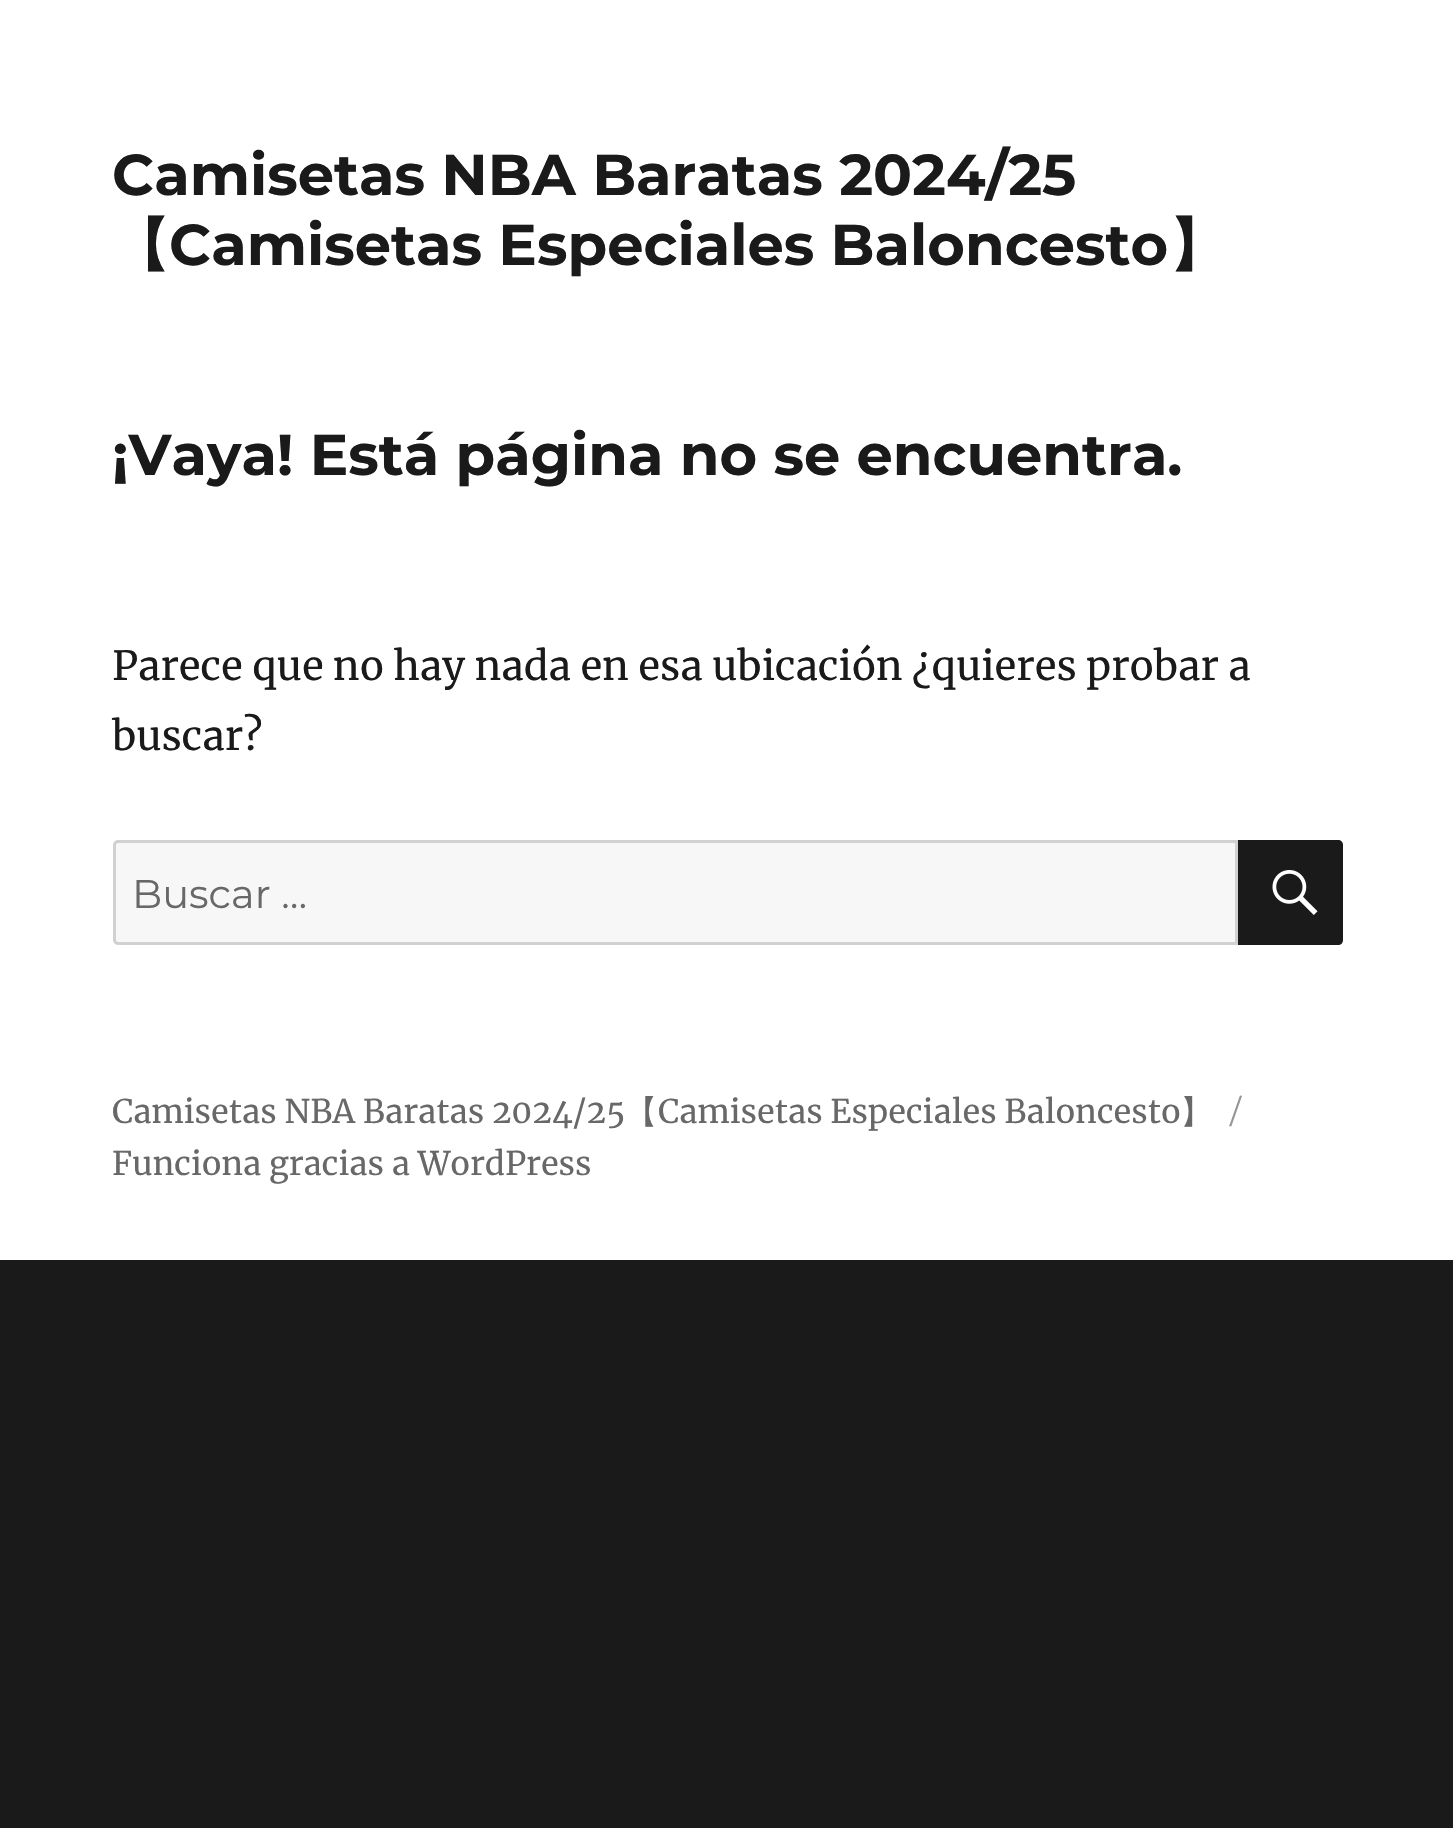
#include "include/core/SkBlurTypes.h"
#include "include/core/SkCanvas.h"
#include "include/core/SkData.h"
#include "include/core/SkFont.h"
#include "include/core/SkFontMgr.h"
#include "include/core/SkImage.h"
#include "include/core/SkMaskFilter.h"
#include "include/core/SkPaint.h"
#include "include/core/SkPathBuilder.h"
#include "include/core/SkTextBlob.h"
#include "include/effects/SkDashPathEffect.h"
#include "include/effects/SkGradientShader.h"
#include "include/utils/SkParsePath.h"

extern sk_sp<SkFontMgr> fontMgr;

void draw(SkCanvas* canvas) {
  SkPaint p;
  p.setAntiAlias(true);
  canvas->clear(SkColorSetRGB(26, 26, 26));
  p.setColor(SK_ColorWHITE);
  canvas->drawRect(SkRect::MakeLTRB(0, 0, 1453, 1260), p);
  p.setColor(SkColorSetRGB(247, 247, 247));
  canvas->drawPath(SkPathBuilder().moveTo(118, 841.5f).lineTo(1236.5f, 841.5f).lineTo(1236.5f, 943.5f).lineTo(118, 943.5f).cubicTo(116, 943.5f, 114.5f, 942, 114.5f, 940).lineTo(114.5f, 845).cubicTo(114.5f, 843, 116, 841.5f, 118, 841.5f).close().detach(), p);
  p.setStyle(SkPaint::kStroke_Style);
  p.setStrokeWidth(3);
  p.setColor(SkColorSetRGB(209, 209, 209));
  canvas->drawPath(SkPathBuilder().moveTo(118, 841.5f).lineTo(1236.5f, 841.5f).lineTo(1236.5f, 943.5f).lineTo(118, 943.5f).cubicTo(116, 943.5f, 114.5f, 942, 114.5f, 940).lineTo(114.5f, 845).cubicTo(114.5f, 843, 116, 841.5f, 118, 841.5f).close().detach(), p);
  p.setStyle(SkPaint::kFill_Style);
  p.setColor(SkColorSetRGB(26, 26, 26));
  canvas->drawPath(SkPathBuilder().moveTo(1238, 840).lineTo(1338, 840).cubicTo(1341, 840, 1343, 842, 1343, 845).lineTo(1343, 940).cubicTo(1343, 943, 1341, 945, 1338, 945).lineTo(1238, 945).close().detach(), p);
  canvas->drawImageRect(SkImages::DeferredFromEncodedData(SkData::MakeFromFileName("images/1.png")), SkRect::MakeLTRB(1272, 870, 1318, 915), SkSamplingOptions());
  SkFont font1(fontMgr->matchFamilyStyle("Montserrat", SkFontStyle(100, SkFontStyle::kNormal_Width, SkFontStyle::kUpright_Slant)), 57.5f);
  font1.setSubpixel(true);
  canvas->drawString("Camisetas NBA Baratas 2024/25", 112, 195, font1, p);
  SkFont font2(fontMgr->matchFamilyStyle("WenQuanYi Zen Hei", SkFontStyle::Bold()), 57.5f);
  font2.setSubpixel(true);
  canvas->drawString("【", 112, 265, font2, p);
  canvas->drawString("Camisetas Especiales Baloncesto", 169, 265, font1, p);
  canvas->drawString("】", 1169, 265, font2, p);
  canvas->drawString("¡Vaya! Está página no se encuentra.", 112, 475, font1, p);
  SkFont font3(fontMgr->matchFamilyStyle("Merriweather", SkFontStyle::Normal()), 40);
  font3.setSubpixel(true);
  canvas->drawString("Parece que no hay nada en esa ubicación ¿quieres probar a", 112, 680, font3, p);
  canvas->drawString("buscar?", 112, 750, font3, p);
  SkFont font4(fontMgr->matchFamilyStyle("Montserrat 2", SkFontStyle(100, SkFontStyle::kNormal_Width, SkFontStyle::kUpright_Slant)), 40);
  font4.setSubpixel(true);
  p.setColor(SkColorSetRGB(104, 104, 104));
  canvas->drawString("Buscar …", 132, 908, font4, p);
  SkFont font5(fontMgr->matchFamilyStyle("Merriweather", SkFontStyle::Normal()), 32.5f);
  font5.setSubpixel(true);
  canvas->drawString("Camisetas NBA Baratas 2024/25", 112, 1123, font5, p);
  SkFont font6(fontMgr->matchFamilyStyle("WenQuanYi Zen Hei", SkFontStyle(500, SkFontStyle::kNormal_Width, SkFontStyle::kUpright_Slant)), 32.5f);
  font6.setSubpixel(true);
  canvas->drawString("【", 625, 1123, font6, p);
  canvas->drawString("Camisetas Especiales Baloncesto", 658, 1123, font5, p);
  canvas->drawString("】", 1180, 1123, font6, p);
  SkFont font7(fontMgr->matchFamilyStyle("Montserrat 2", SkFontStyle(100, SkFontStyle::kNormal_Width, SkFontStyle::kUpright_Slant)), 32.5f);
  font7.setSubpixel(true);
  p.setColor(SkColorSetRGB(149, 149, 149));
  canvas->drawString("/", 1230, 1123, font7, p);
  p.setColor(SkColorSetRGB(104, 104, 104));
  canvas->drawString("Funciona gracias a WordPress", 112, 1175, font5, p);
}
